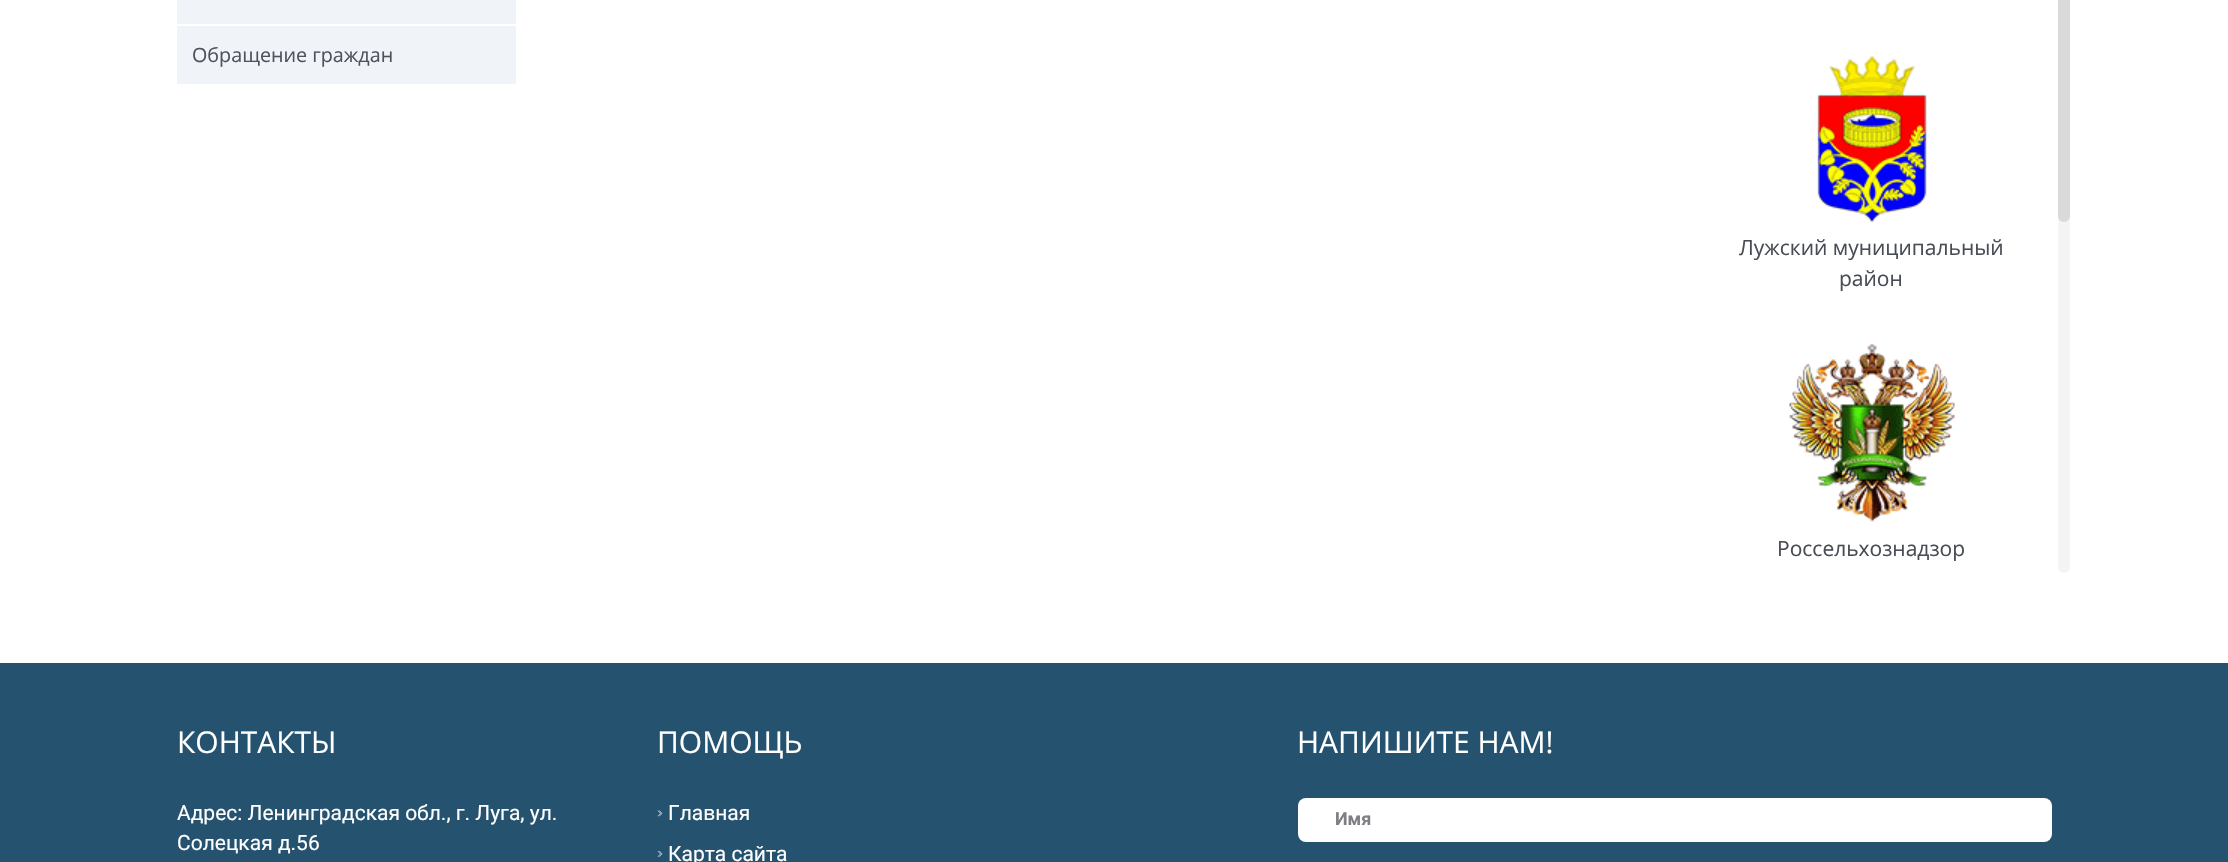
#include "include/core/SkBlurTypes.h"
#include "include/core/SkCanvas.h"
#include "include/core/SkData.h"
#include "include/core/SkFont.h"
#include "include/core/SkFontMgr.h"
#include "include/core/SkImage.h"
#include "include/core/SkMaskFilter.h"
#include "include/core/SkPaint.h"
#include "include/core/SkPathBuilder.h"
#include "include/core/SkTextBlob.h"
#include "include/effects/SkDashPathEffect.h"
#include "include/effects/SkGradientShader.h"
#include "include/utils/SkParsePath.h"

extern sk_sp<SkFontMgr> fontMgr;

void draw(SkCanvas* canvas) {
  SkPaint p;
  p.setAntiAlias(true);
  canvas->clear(SK_ColorWHITE);
  p.setColor(SkColorSetRGB(240, 243, 248));
  canvas->drawRect(SkRect::MakeLTRB(177, 0, 516, 24), p);
  canvas->drawRect(SkRect::MakeLTRB(177, 26, 516, 84), p);
  canvas->drawImageRect(SkImages::DeferredFromEncodedData(SkData::MakeFromFileName("images/1.png")), SkRect::MakeLTRB(1817, 56, 1927, 222), SkSamplingOptions());
  canvas->drawImageRect(SkImages::DeferredFromEncodedData(SkData::MakeFromFileName("images/2.png")), SkRect::MakeLTRB(1789, 344, 1955, 522), SkSamplingOptions());
  p.setColor(SkColorSetRGB(244, 244, 244));
  canvas->drawRoundRect(SkRect::MakeLTRB(2058, -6, 2070, 573), 6, 6, p);
  p.setColor(SkColorSetRGB(218, 218, 218));
  canvas->drawRoundRect(SkRect::MakeLTRB(2058, -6, 2070, 222), 6, 6, p);
  p.setColor(SkColorSetRGB(37, 83, 111));
  canvas->drawRect(SkRect::MakeLTRB(0, 663, 2228, 862), p);
  canvas->drawImageRect(SkImages::DeferredFromEncodedData(SkData::MakeFromFileName("images/3.png")), SkRect::MakeLTRB(657, 810, 663, 817), SkSamplingOptions());
  canvas->drawImageRect(SkImages::DeferredFromEncodedData(SkData::MakeFromFileName("images/4.png")), SkRect::MakeLTRB(657, 851, 663, 857), SkSamplingOptions());
  p.setColor(SK_ColorWHITE);
  canvas->drawRoundRect(SkRect::MakeLTRB(1298, 798, 2052, 842), 8, 8, p);
  SkFont font1(fontMgr->matchFamilyStyle("Open Sans", SkFontStyle::Normal()), 19.75f);
  font1.setSubpixel(true);
  p.setColor(SkColorSetRGB(78, 82, 93));
  canvas->drawString("Обращение граждан", 192, 62, font1, p);
  SkFont font2(fontMgr->matchFamilyStyle("Open Sans", SkFontStyle::Normal()), 21);
  font2.setSubpixel(true);
  p.setColor(SkColorSetRGB(72, 76, 85));
  canvas->drawString("Лужский муниципальный", 1739, 255, font2, p);
  canvas->drawString("район", 1839, 286, font2, p);
  canvas->drawString("Россельхознадзор", 1777, 556, font2, p);
  SkFont font3(fontMgr->matchFamilyStyle("Open Sans", SkFontStyle::Normal()), 30);
  font3.setSubpixel(true);
  p.setColor(SK_ColorWHITE);
  canvas->drawString("КОНТАКТЫ", 177, 753, font3, p);
  SkFont font4(fontMgr->matchFamilyStyle("Roboto", SkFontStyle::Normal()), 21);
  font4.setSubpixel(true);
  canvas->drawString("Адрес: Ленинградская обл., г. Луга, ул.", 177, 820, font4, p);
  canvas->drawString("Солецкая д.56", 177, 850, font4, p);
  canvas->drawString("ПОМОЩЬ", 657, 753, font3, p);
  canvas->drawString("Главная", 668, 820, font4, p);
  canvas->drawString("Карта сайта", 668, 861, font4, p);
  canvas->drawString("НАПИШИТЕ НАМ!", 1297, 753, font3, p);
  SkFont font5(fontMgr->matchFamilyStyle("Roboto", SkFontStyle::Bold()), 18);
  font5.setSubpixel(true);
  p.setColor(SkColorSetRGB(126, 127, 132));
  canvas->drawString("Имя", 1335, 825, font5, p);
}
